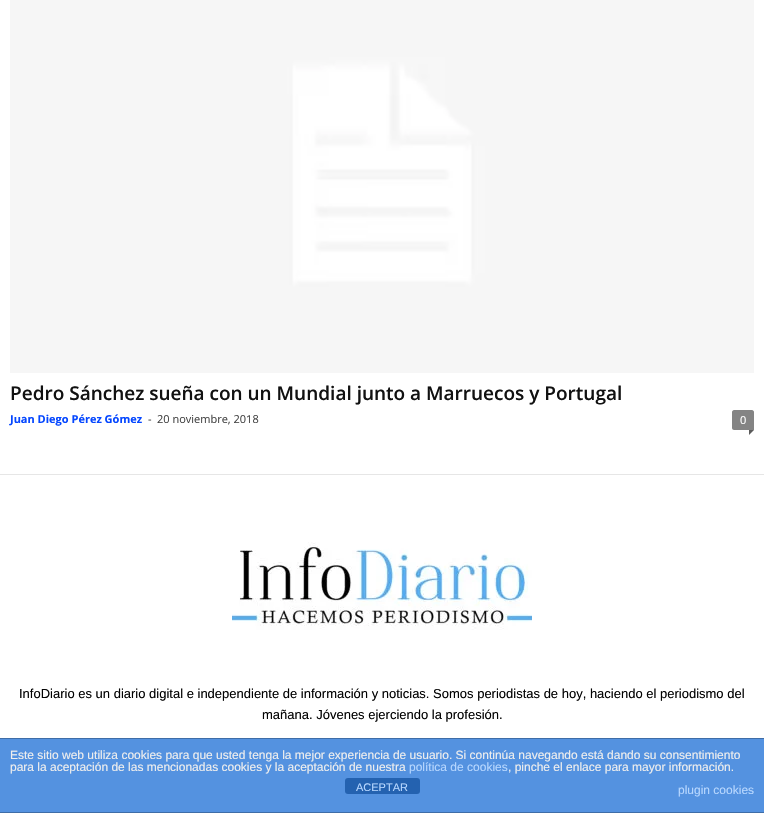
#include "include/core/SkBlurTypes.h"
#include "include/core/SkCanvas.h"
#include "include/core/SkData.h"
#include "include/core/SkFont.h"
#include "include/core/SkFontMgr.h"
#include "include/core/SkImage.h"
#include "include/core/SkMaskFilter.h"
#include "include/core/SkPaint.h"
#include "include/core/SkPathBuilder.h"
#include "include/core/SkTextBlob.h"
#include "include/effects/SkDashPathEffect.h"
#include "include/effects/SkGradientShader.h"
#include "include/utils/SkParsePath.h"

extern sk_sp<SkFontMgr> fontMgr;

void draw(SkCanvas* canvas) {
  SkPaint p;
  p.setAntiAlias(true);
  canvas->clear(SK_ColorWHITE);
  p.setColor(SkColorSetRGB(230, 230, 230));
  canvas->drawRect(SkRect::MakeLTRB(0, 474, 764, 475), p);
  canvas->drawImageRect(SkImages::DeferredFromEncodedData(SkData::MakeFromFileName("images/1.png")), SkRect::MakeLTRB(10, 0, 754, 373), SkSamplingOptions());
  p.setColor(SkColorSetRGB(132, 132, 132));
  canvas->drawPath(SkPathBuilder().moveTo(734, 410).lineTo(752, 410).cubicTo(753, 410, 754, 411, 754, 412).lineTo(754, 430).lineTo(734, 430).cubicTo(733, 430, 732, 429, 732, 428).lineTo(732, 412).cubicTo(732, 411, 733, 410, 734, 410).close().detach(), p);
  p.setColor(SkColorSetRGB(91, 91, 91));
  canvas->drawPath(SkPathBuilder().moveTo(749, 430).lineTo(754, 430).lineTo(749, 435).close().detach(), p);
  canvas->drawImageRect(SkImages::DeferredFromEncodedData(SkData::MakeFromFileName("images/2.png")), SkRect::MakeLTRB(232, 542, 532, 630), SkSamplingOptions());
  p.setColor(SkColorSetRGB(84, 146, 224));
  canvas->drawRect(SkRect::MakeLTRB(0, 739, 764, 812), p);
  p.setColor(SkColorSetRGB(63, 109, 167));
  canvas->drawRect(SkRect::MakeLTRB(0, 738, 764, 739), p);
  canvas->drawRect(SkRect::MakeLTRB(0, 812, 764, 813), p);
  p.setColor(SkColorSetRGB(36, 98, 176));
  canvas->drawRoundRect(SkRect::MakeLTRB(345, 778, 420, 794), 3, 3, p);
  SkFont font1(fontMgr->matchFamilyStyle("Open Sans", SkFontStyle(600, SkFontStyle::kNormal_Width, SkFontStyle::kUpright_Slant)), 19);
  font1.setSubpixel(true);
  p.setColor(SkColorSetRGB(17, 17, 17));
  canvas->drawString("Pedro Sánchez sueña con un Mundial junto a Marruecos y Portugal", 10, 400, font1, p);
  SkFont font2(fontMgr->matchFamilyStyle("Open Sans", SkFontStyle::Bold()), 11);
  font2.setSubpixel(true);
  p.setColor(SkColorSetRGB(5, 71, 255));
  canvas->drawString("Juan Diego Pérez Gómez", 10, 423, font2, p);
  SkFont font3(fontMgr->matchFamilyStyle("Open Sans", SkFontStyle::Normal()), 11);
  font3.setSubpixel(true);
  p.setColor(SkColorSetRGB(68, 68, 68));
  canvas->drawString("-", 148, 423, font3, p);
  canvas->drawString("20 noviembre, 2018", 157, 423, font3, p);
  p.setColor(SK_ColorWHITE);
  canvas->drawString("0", 740, 424, font3, p);
  SkFont font4(fontMgr->matchFamilyStyle("Liberation Sans", SkFontStyle::Normal()), 13);
  font4.setSubpixel(true);
  p.setColor(SkColorSetRGB(2, 2, 2));
  canvas->drawString("InfoDiario es un diario digital e independiente de información y noticias. Somos periodistas de hoy, haciendo el periodismo del", 19, 698, font4, p);
  canvas->drawString("mañana. Jóvenes ejerciendo la profesión.", 262, 719, font4, p);
  SkFont font5(fontMgr->matchFamilyStyle("Liberation Sans", SkFontStyle::Normal()), 12);
  font5.setSubpixel(true);
  p.setColor(SkColorSetRGB(238, 238, 238));
  canvas->drawString("Este sitio web utiliza cookies para que usted tenga la mejor experiencia de usuario. Si continúa navegando está dando su consentimiento", 10, 759, font5, p);
  canvas->drawString("para la aceptación de las mencionadas cookies y la aceptación de nuestra", 10, 771, font5, p);
  p.setColor(SkColorSetRGB(183, 215, 255));
  canvas->drawString("política de cookies", 409, 771, font5, p);
  p.setColor(SkColorSetRGB(238, 238, 238));
  canvas->drawString(", pinche el enlace para mayor información.", 508, 771, font5, p);
  p.setColor(SkColorSetRGB(183, 215, 255));
  canvas->drawString("plugin cookies", 678, 794, font5, p);
  SkFont font6(fontMgr->matchFamilyStyle("Liberation Sans", SkFontStyle::Normal()), 11);
  font6.setSubpixel(true);
  canvas->drawString("ACEPTAR", 356, 791, font6, p);
}
